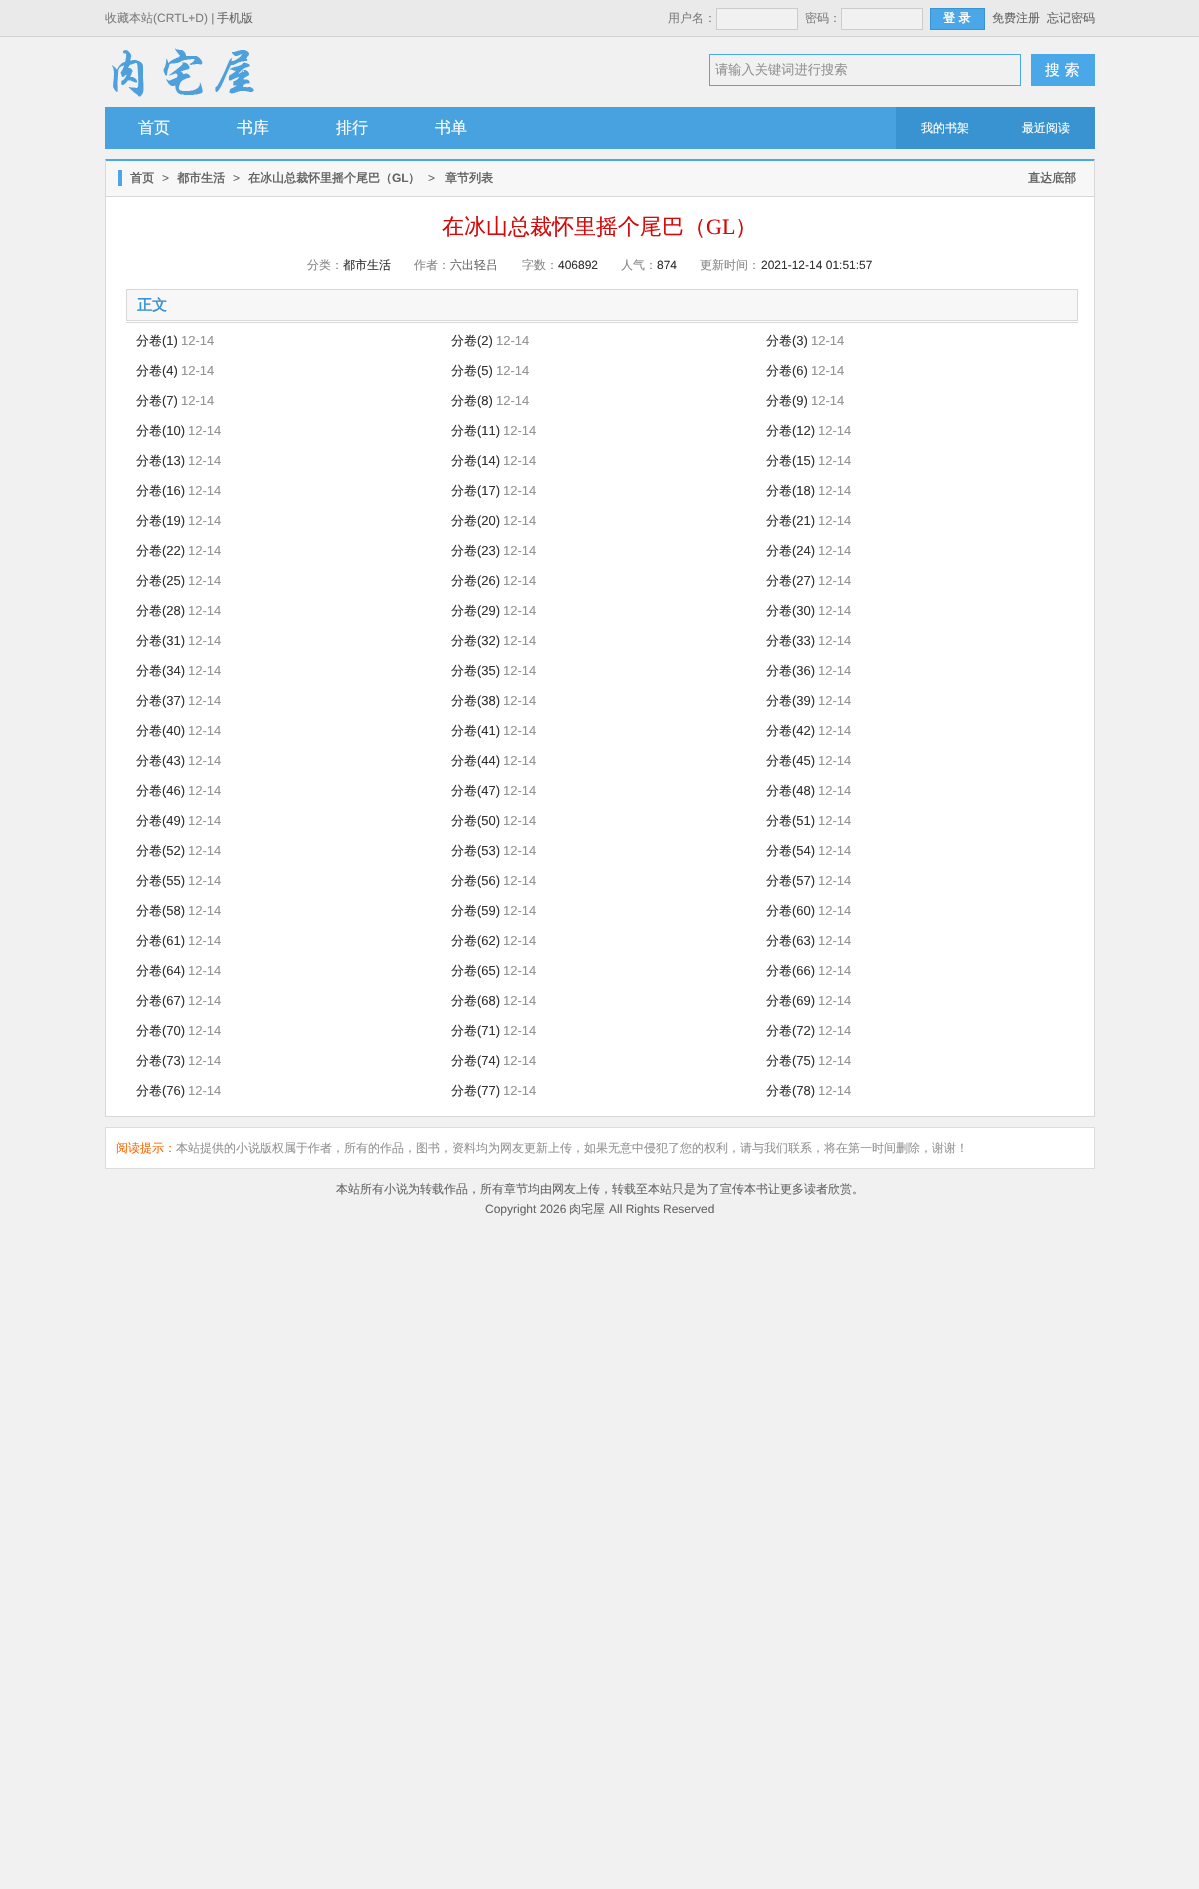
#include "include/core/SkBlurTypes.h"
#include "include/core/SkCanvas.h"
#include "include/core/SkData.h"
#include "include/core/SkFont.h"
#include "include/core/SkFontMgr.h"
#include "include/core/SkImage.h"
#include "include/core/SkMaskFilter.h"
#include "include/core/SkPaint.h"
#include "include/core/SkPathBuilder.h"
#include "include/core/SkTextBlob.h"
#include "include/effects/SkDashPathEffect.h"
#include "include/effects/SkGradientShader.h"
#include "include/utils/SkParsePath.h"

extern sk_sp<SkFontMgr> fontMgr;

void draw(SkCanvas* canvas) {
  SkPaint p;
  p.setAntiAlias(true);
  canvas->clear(SkColorSetRGB(241, 241, 241));
  p.setColor(SkColorSetRGB(234, 234, 234));
  canvas->drawRect(SkRect::MakeLTRB(0, 0, 1199, 36), p);
  p.setColor(SkColorSetRGB(209, 209, 209));
  canvas->drawRect(SkRect::MakeLTRB(0, 36, 1199, 37), p);
  p.setColor(SkColorSetRGB(241, 241, 241));
  canvas->drawRect(SkRect::MakeLTRB(716.5f, 8.5f, 797.5f, 29.5f), p);
  p.setStyle(SkPaint::kStroke_Style);
  p.setStrokeWidth(1);
  p.setColor(SkColorSetRGB(204, 204, 204));
  canvas->drawRect(SkRect::MakeLTRB(716.5f, 8.5f, 797.5f, 29.5f), p);
  p.setStyle(SkPaint::kFill_Style);
  p.setColor(SkColorSetRGB(241, 241, 241));
  canvas->drawRect(SkRect::MakeLTRB(841.5f, 8.5f, 922.5f, 29.5f), p);
  p.setStyle(SkPaint::kStroke_Style);
  p.setColor(SkColorSetRGB(204, 204, 204));
  canvas->drawRect(SkRect::MakeLTRB(841.5f, 8.5f, 922.5f, 29.5f), p);
  p.setStyle(SkPaint::kFill_Style);
  p.setColor(SkColorSetRGB(75, 168, 232));
  canvas->drawRect(SkRect::MakeLTRB(930.5f, 8.5f, 984.5f, 29.5f), p);
  p.setStyle(SkPaint::kStroke_Style);
  p.setColor(SkColorSetRGB(57, 147, 209));
  canvas->drawRect(SkRect::MakeLTRB(930.5f, 8.5f, 984.5f, 29.5f), p);
  canvas->drawImageRect(SkImages::DeferredFromEncodedData(SkData::MakeFromFileName("images/1.png")), SkRect::MakeLTRB(112, 48, 254, 97), SkSamplingOptions());
  p.setColor(SkColorSetRGB(75, 168, 232));
  canvas->drawRect(SkRect::MakeLTRB(709.5f, 54.5f, 1020.5f, 85.5f), p);
  p.setStyle(SkPaint::kFill_Style);
  canvas->drawRect(SkRect::MakeLTRB(1031, 54, 1095, 86), p);
  p.setColor(SkColorSetRGB(72, 162, 224));
  canvas->drawRect(SkRect::MakeLTRB(105, 107, 896, 149), p);
  p.setColor(SkColorSetRGB(57, 147, 209));
  canvas->drawRect(SkRect::MakeLTRB(896, 107, 1095, 149), p);
  p.setColor(SkColorSetRGB(247, 247, 247));
  canvas->drawRect(SkRect::MakeLTRB(106, 161, 1094, 196), p);
  p.setColor(SkColorSetRGB(75, 168, 232));
  canvas->drawPath(SkPathBuilder().moveTo(105, 159).lineTo(1095, 159).lineTo(1094, 161).lineTo(106, 161).close().detach(), p);
  p.setColor(SkColorSetRGB(216, 216, 216));
  canvas->drawPath(SkPathBuilder().moveTo(1095, 159).lineTo(1095, 197).lineTo(1094, 196).lineTo(1094, 161).close().detach(), p);
  canvas->drawRect(SkRect::MakeLTRB(105, 196, 1095, 197), p);
  canvas->drawPath(SkPathBuilder().moveTo(105, 197).lineTo(105, 159).lineTo(106, 161).lineTo(106, 196).close().detach(), p);
  p.setColor(SkColorSetRGB(75, 168, 232));
  canvas->drawRect(SkRect::MakeLTRB(118, 170, 122, 186), p);
  p.setColor(SK_ColorWHITE);
  canvas->drawRect(SkRect::MakeLTRB(106, 197, 1094, 284), p);
  p.setColor(SkColorSetRGB(216, 216, 216));
  canvas->drawRect(SkRect::MakeLTRB(1094, 197, 1095, 284), p);
  canvas->drawRect(SkRect::MakeLTRB(105, 197, 106, 284), p);
  p.setColor(SK_ColorWHITE);
  canvas->drawRect(SkRect::MakeLTRB(106, 284, 1094, 1116), p);
  p.setColor(SkColorSetRGB(216, 216, 216));
  canvas->drawRect(SkRect::MakeLTRB(1094, 284, 1095, 1117), p);
  canvas->drawRect(SkRect::MakeLTRB(105, 1116, 1095, 1117), p);
  canvas->drawRect(SkRect::MakeLTRB(105, 284, 106, 1117), p);
  p.setColor(SkColorSetRGB(247, 247, 247));
  canvas->drawRect(SkRect::MakeLTRB(126.5f, 289.5f, 1077.5f, 320.5f), p);
  p.setStyle(SkPaint::kStroke_Style);
  p.setColor(SkColorSetRGB(216, 216, 216));
  canvas->drawRect(SkRect::MakeLTRB(126.5f, 289.5f, 1077.5f, 320.5f), p);
  p.setStyle(SkPaint::kFill_Style);
  canvas->drawRect(SkRect::MakeLTRB(126, 322, 1078, 323), p);
  p.setColor(SK_ColorWHITE);
  canvas->drawRect(SkRect::MakeLTRB(105.5f, 1127.5f, 1094.5f, 1168.5f), p);
  p.setStyle(SkPaint::kStroke_Style);
  p.setColor(SkColorSetRGB(221, 221, 221));
  canvas->drawRect(SkRect::MakeLTRB(105.5f, 1127.5f, 1094.5f, 1168.5f), p);
  SkFont font1(fontMgr->matchFamilyStyle("WenQuanYi Zen Hei", SkFontStyle(500, SkFontStyle::kNormal_Width, SkFontStyle::kUpright_Slant)), 12);
  font1.setSubpixel(true);
  p.setStyle(SkPaint::kFill_Style);
  p.setColor(SkColorSetRGB(127, 127, 127));
  canvas->drawString("收藏本站", 105, 22, font1, p);
  SkFont font2(fontMgr->matchFamilyStyle("Liberation Sans", SkFontStyle::Normal()), 12);
  font2.setSubpixel(true);
  canvas->drawString("(CRTL+D) |", 153, 22, font2, p);
  p.setColor(SkColorSetRGB(102, 102, 102));
  canvas->drawString("手机版", 217, 22, font1, p);
  p.setColor(SkColorSetRGB(127, 127, 127));
  canvas->drawString("用户名：", 668, 22, font1, p);
  canvas->drawString("密码：", 805, 22, font1, p);
  SkFont font3(fontMgr->matchFamilyStyle("WenQuanYi Zen Hei", SkFontStyle::Bold()), 12);
  font3.setSubpixel(true);
  p.setColor(SK_ColorWHITE);
  canvas->drawString("登 录", 943, 22, font3, p);
  p.setColor(SkColorSetRGB(102, 102, 102));
  canvas->drawString("免费注册", 992, 22, font1, p);
  canvas->drawString("忘记密码", 1047, 22, font1, p);
  SkFont font4(fontMgr->matchFamilyStyle("WenQuanYi Zen Hei", SkFontStyle(500, SkFontStyle::kNormal_Width, SkFontStyle::kUpright_Slant)), 13.25f);
  font4.setSubpixel(true);
  p.setColor(SkColorSetRGB(148, 148, 148));
  canvas->drawString("请输入关键词进行搜索", 715, 74, font4, p);
  SkFont font5(fontMgr->matchFamilyStyle("WenQuanYi Zen Hei", SkFontStyle(500, SkFontStyle::kNormal_Width, SkFontStyle::kUpright_Slant)), 15);
  font5.setSubpixel(true);
  p.setColor(SK_ColorWHITE);
  canvas->drawString("搜 索", 1045, 75, font5, p);
  SkFont font6(fontMgr->matchFamilyStyle("WenQuanYi Zen Hei", SkFontStyle(500, SkFontStyle::kNormal_Width, SkFontStyle::kUpright_Slant)), 16);
  font6.setSubpixel(true);
  canvas->drawString("首页", 138, 133, font6, p);
  canvas->drawString("书库", 237, 133, font6, p);
  canvas->drawString("排行", 336, 133, font6, p);
  canvas->drawString("书单", 435, 133, font6, p);
  canvas->drawString("我的书架", 921, 132, font1, p);
  canvas->drawString("最近阅读", 1022, 132, font1, p);
  p.setColor(SkColorSetRGB(102, 102, 102));
  canvas->drawString("首页", 130, 182, font3, p);
  canvas->drawString(">", 162, 182, font2, p);
  canvas->drawString("都市生活", 177, 182, font3, p);
  canvas->drawString(">", 233, 182, font2, p);
  canvas->drawString("在冰山总裁怀里摇个尾巴（", 248, 182, font3, p);
  SkFont font7(fontMgr->matchFamilyStyle("Liberation Sans", SkFontStyle::Bold()), 12);
  font7.setSubpixel(true);
  canvas->drawString("GL", 392, 182, font7, p);
  canvas->drawString("）", 408, 182, font3, p);
  canvas->drawString(">", 428, 182, font2, p);
  canvas->drawString("章节列表", 445, 182, font3, p);
  canvas->drawString("直达底部", 1028, 182, font3, p);
  SkFont font8(fontMgr->matchFamilyStyle("WenQuanYi Zen Hei", SkFontStyle(500, SkFontStyle::kNormal_Width, SkFontStyle::kUpright_Slant)), 22);
  font8.setSubpixel(true);
  p.setColor(SkColorSetRGB(212, 9, 9));
  canvas->drawString("在冰山总裁怀里摇个尾巴（", 442, 234, font8, p);
  SkFont font9(fontMgr->matchFamilyStyle("Liberation Serif", SkFontStyle::Normal()), 22);
  font9.setSubpixel(true);
  canvas->drawString("GL", 706, 234, font9, p);
  canvas->drawString("）", 735, 234, font8, p);
  p.setColor(SkColorSetRGB(136, 136, 136));
  canvas->drawString("分类：", 307, 269, font1, p);
  p.setColor(SkColorSetRGB(51, 51, 51));
  canvas->drawString("都市生活", 343, 269, font1, p);
  p.setColor(SkColorSetRGB(136, 136, 136));
  canvas->drawString("作者：", 414, 269, font1, p);
  p.setColor(SkColorSetRGB(102, 102, 102));
  canvas->drawString("六出轻吕", 450, 269, font1, p);
  p.setColor(SkColorSetRGB(136, 136, 136));
  canvas->drawString("字数：", 522, 269, font1, p);
  p.setColor(SkColorSetRGB(51, 51, 51));
  canvas->drawString("406892", 558, 269, font2, p);
  p.setColor(SkColorSetRGB(136, 136, 136));
  canvas->drawString("人气：", 621, 269, font1, p);
  p.setColor(SkColorSetRGB(51, 51, 51));
  canvas->drawString("874", 657, 269, font2, p);
  p.setColor(SkColorSetRGB(136, 136, 136));
  canvas->drawString("更新时间：", 700, 269, font1, p);
  p.setColor(SkColorSetRGB(51, 51, 51));
  canvas->drawString("2021-12-14 01:51:57", 761, 269, font2, p);
  SkFont font10(fontMgr->matchFamilyStyle("WenQuanYi Zen Hei", SkFontStyle::Bold()), 15);
  font10.setSubpixel(true);
  p.setColor(SkColorSetRGB(57, 147, 209));
  canvas->drawString("正文", 137, 310, font10, p);
  SkFont font11(fontMgr->matchFamilyStyle("WenQuanYi Zen Hei", SkFontStyle(500, SkFontStyle::kNormal_Width, SkFontStyle::kUpright_Slant)), 13);
  font11.setSubpixel(true);
  p.setColor(SkColorSetRGB(51, 51, 51));
  canvas->drawString("分卷", 136, 345, font11, p);
  SkFont font12(fontMgr->matchFamilyStyle("Liberation Sans", SkFontStyle::Normal()), 13);
  font12.setSubpixel(true);
  canvas->drawString("(1)", 162, 345, font12, p);
  p.setColor(SkColorSetRGB(148, 148, 148));
  canvas->drawString("12-14", 181, 345, font12, p);
  p.setColor(SkColorSetRGB(51, 51, 51));
  canvas->drawString("分卷", 451, 345, font11, p);
  canvas->drawString("(2)", 477, 345, font12, p);
  p.setColor(SkColorSetRGB(148, 148, 148));
  canvas->drawString("12-14", 496, 345, font12, p);
  p.setColor(SkColorSetRGB(51, 51, 51));
  canvas->drawString("分卷", 766, 345, font11, p);
  canvas->drawString("(3)", 792, 345, font12, p);
  p.setColor(SkColorSetRGB(148, 148, 148));
  canvas->drawString("12-14", 811, 345, font12, p);
  p.setColor(SkColorSetRGB(51, 51, 51));
  canvas->drawString("分卷", 136, 375, font11, p);
  canvas->drawString("(4)", 162, 375, font12, p);
  p.setColor(SkColorSetRGB(148, 148, 148));
  canvas->drawString("12-14", 181, 375, font12, p);
  p.setColor(SkColorSetRGB(51, 51, 51));
  canvas->drawString("分卷", 451, 375, font11, p);
  canvas->drawString("(5)", 477, 375, font12, p);
  p.setColor(SkColorSetRGB(148, 148, 148));
  canvas->drawString("12-14", 496, 375, font12, p);
  p.setColor(SkColorSetRGB(51, 51, 51));
  canvas->drawString("分卷", 766, 375, font11, p);
  canvas->drawString("(6)", 792, 375, font12, p);
  p.setColor(SkColorSetRGB(148, 148, 148));
  canvas->drawString("12-14", 811, 375, font12, p);
  p.setColor(SkColorSetRGB(51, 51, 51));
  canvas->drawString("分卷", 136, 405, font11, p);
  canvas->drawString("(7)", 162, 405, font12, p);
  p.setColor(SkColorSetRGB(148, 148, 148));
  canvas->drawString("12-14", 181, 405, font12, p);
  p.setColor(SkColorSetRGB(51, 51, 51));
  canvas->drawString("分卷", 451, 405, font11, p);
  canvas->drawString("(8)", 477, 405, font12, p);
  p.setColor(SkColorSetRGB(148, 148, 148));
  canvas->drawString("12-14", 496, 405, font12, p);
  p.setColor(SkColorSetRGB(51, 51, 51));
  canvas->drawString("分卷", 766, 405, font11, p);
  canvas->drawString("(9)", 792, 405, font12, p);
  p.setColor(SkColorSetRGB(148, 148, 148));
  canvas->drawString("12-14", 811, 405, font12, p);
  p.setColor(SkColorSetRGB(51, 51, 51));
  canvas->drawString("分卷", 136, 435, font11, p);
  canvas->drawString("(10)", 162, 435, font12, p);
  p.setColor(SkColorSetRGB(148, 148, 148));
  canvas->drawString("12-14", 188, 435, font12, p);
  p.setColor(SkColorSetRGB(51, 51, 51));
  canvas->drawString("分卷", 451, 435, font11, p);
  canvas->drawString("(11)", 477, 435, font12, p);
  p.setColor(SkColorSetRGB(148, 148, 148));
  canvas->drawString("12-14", 503, 435, font12, p);
  p.setColor(SkColorSetRGB(51, 51, 51));
  canvas->drawString("分卷", 766, 435, font11, p);
  canvas->drawString("(12)", 792, 435, font12, p);
  p.setColor(SkColorSetRGB(148, 148, 148));
  canvas->drawString("12-14", 818, 435, font12, p);
  p.setColor(SkColorSetRGB(51, 51, 51));
  canvas->drawString("分卷", 136, 465, font11, p);
  canvas->drawString("(13)", 162, 465, font12, p);
  p.setColor(SkColorSetRGB(148, 148, 148));
  canvas->drawString("12-14", 188, 465, font12, p);
  p.setColor(SkColorSetRGB(51, 51, 51));
  canvas->drawString("分卷", 451, 465, font11, p);
  canvas->drawString("(14)", 477, 465, font12, p);
  p.setColor(SkColorSetRGB(148, 148, 148));
  canvas->drawString("12-14", 503, 465, font12, p);
  p.setColor(SkColorSetRGB(51, 51, 51));
  canvas->drawString("分卷", 766, 465, font11, p);
  canvas->drawString("(15)", 792, 465, font12, p);
  p.setColor(SkColorSetRGB(148, 148, 148));
  canvas->drawString("12-14", 818, 465, font12, p);
  p.setColor(SkColorSetRGB(51, 51, 51));
  canvas->drawString("分卷", 136, 495, font11, p);
  canvas->drawString("(16)", 162, 495, font12, p);
  p.setColor(SkColorSetRGB(148, 148, 148));
  canvas->drawString("12-14", 188, 495, font12, p);
  p.setColor(SkColorSetRGB(51, 51, 51));
  canvas->drawString("分卷", 451, 495, font11, p);
  canvas->drawString("(17)", 477, 495, font12, p);
  p.setColor(SkColorSetRGB(148, 148, 148));
  canvas->drawString("12-14", 503, 495, font12, p);
  p.setColor(SkColorSetRGB(51, 51, 51));
  canvas->drawString("分卷", 766, 495, font11, p);
  canvas->drawString("(18)", 792, 495, font12, p);
  p.setColor(SkColorSetRGB(148, 148, 148));
  canvas->drawString("12-14", 818, 495, font12, p);
  p.setColor(SkColorSetRGB(51, 51, 51));
  canvas->drawString("分卷", 136, 525, font11, p);
  canvas->drawString("(19)", 162, 525, font12, p);
  p.setColor(SkColorSetRGB(148, 148, 148));
  canvas->drawString("12-14", 188, 525, font12, p);
  p.setColor(SkColorSetRGB(51, 51, 51));
  canvas->drawString("分卷", 451, 525, font11, p);
  canvas->drawString("(20)", 477, 525, font12, p);
  p.setColor(SkColorSetRGB(148, 148, 148));
  canvas->drawString("12-14", 503, 525, font12, p);
  p.setColor(SkColorSetRGB(51, 51, 51));
  canvas->drawString("分卷", 766, 525, font11, p);
  canvas->drawString("(21)", 792, 525, font12, p);
  p.setColor(SkColorSetRGB(148, 148, 148));
  canvas->drawString("12-14", 818, 525, font12, p);
  p.setColor(SkColorSetRGB(51, 51, 51));
  canvas->drawString("分卷", 136, 555, font11, p);
  canvas->drawString("(22)", 162, 555, font12, p);
  p.setColor(SkColorSetRGB(148, 148, 148));
  canvas->drawString("12-14", 188, 555, font12, p);
  p.setColor(SkColorSetRGB(51, 51, 51));
  canvas->drawString("分卷", 451, 555, font11, p);
  canvas->drawString("(23)", 477, 555, font12, p);
  p.setColor(SkColorSetRGB(148, 148, 148));
  canvas->drawString("12-14", 503, 555, font12, p);
  p.setColor(SkColorSetRGB(51, 51, 51));
  canvas->drawString("分卷", 766, 555, font11, p);
  canvas->drawString("(24)", 792, 555, font12, p);
  p.setColor(SkColorSetRGB(148, 148, 148));
  canvas->drawString("12-14", 818, 555, font12, p);
  p.setColor(SkColorSetRGB(51, 51, 51));
  canvas->drawString("分卷", 136, 585, font11, p);
  canvas->drawString("(25)", 162, 585, font12, p);
  p.setColor(SkColorSetRGB(148, 148, 148));
  canvas->drawString("12-14", 188, 585, font12, p);
  p.setColor(SkColorSetRGB(51, 51, 51));
  canvas->drawString("分卷", 451, 585, font11, p);
  canvas->drawString("(26)", 477, 585, font12, p);
  p.setColor(SkColorSetRGB(148, 148, 148));
  canvas->drawString("12-14", 503, 585, font12, p);
  p.setColor(SkColorSetRGB(51, 51, 51));
  canvas->drawString("分卷", 766, 585, font11, p);
  canvas->drawString("(27)", 792, 585, font12, p);
  p.setColor(SkColorSetRGB(148, 148, 148));
  canvas->drawString("12-14", 818, 585, font12, p);
  p.setColor(SkColorSetRGB(51, 51, 51));
  canvas->drawString("分卷", 136, 615, font11, p);
  canvas->drawString("(28)", 162, 615, font12, p);
  p.setColor(SkColorSetRGB(148, 148, 148));
  canvas->drawString("12-14", 188, 615, font12, p);
  p.setColor(SkColorSetRGB(51, 51, 51));
  canvas->drawString("分卷", 451, 615, font11, p);
  canvas->drawString("(29)", 477, 615, font12, p);
  p.setColor(SkColorSetRGB(148, 148, 148));
  canvas->drawString("12-14", 503, 615, font12, p);
  p.setColor(SkColorSetRGB(51, 51, 51));
  canvas->drawString("分卷", 766, 615, font11, p);
  canvas->drawString("(30)", 792, 615, font12, p);
  p.setColor(SkColorSetRGB(148, 148, 148));
  canvas->drawString("12-14", 818, 615, font12, p);
  p.setColor(SkColorSetRGB(51, 51, 51));
  canvas->drawString("分卷", 136, 645, font11, p);
  canvas->drawString("(31)", 162, 645, font12, p);
  p.setColor(SkColorSetRGB(148, 148, 148));
  canvas->drawString("12-14", 188, 645, font12, p);
  p.setColor(SkColorSetRGB(51, 51, 51));
  canvas->drawString("分卷", 451, 645, font11, p);
  canvas->drawString("(32)", 477, 645, font12, p);
  p.setColor(SkColorSetRGB(148, 148, 148));
  canvas->drawString("12-14", 503, 645, font12, p);
  p.setColor(SkColorSetRGB(51, 51, 51));
  canvas->drawString("分卷", 766, 645, font11, p);
  canvas->drawString("(33)", 792, 645, font12, p);
  p.setColor(SkColorSetRGB(148, 148, 148));
  canvas->drawString("12-14", 818, 645, font12, p);
  p.setColor(SkColorSetRGB(51, 51, 51));
  canvas->drawString("分卷", 136, 675, font11, p);
  canvas->drawString("(34)", 162, 675, font12, p);
  p.setColor(SkColorSetRGB(148, 148, 148));
  canvas->drawString("12-14", 188, 675, font12, p);
  p.setColor(SkColorSetRGB(51, 51, 51));
  canvas->drawString("分卷", 451, 675, font11, p);
  canvas->drawString("(35)", 477, 675, font12, p);
  p.setColor(SkColorSetRGB(148, 148, 148));
  canvas->drawString("12-14", 503, 675, font12, p);
  p.setColor(SkColorSetRGB(51, 51, 51));
  canvas->drawString("分卷", 766, 675, font11, p);
  canvas->drawString("(36)", 792, 675, font12, p);
  p.setColor(SkColorSetRGB(148, 148, 148));
  canvas->drawString("12-14", 818, 675, font12, p);
  p.setColor(SkColorSetRGB(51, 51, 51));
  canvas->drawString("分卷", 136, 705, font11, p);
  canvas->drawString("(37)", 162, 705, font12, p);
  p.setColor(SkColorSetRGB(148, 148, 148));
  canvas->drawString("12-14", 188, 705, font12, p);
  p.setColor(SkColorSetRGB(51, 51, 51));
  canvas->drawString("分卷", 451, 705, font11, p);
  canvas->drawString("(38)", 477, 705, font12, p);
  p.setColor(SkColorSetRGB(148, 148, 148));
  canvas->drawString("12-14", 503, 705, font12, p);
  p.setColor(SkColorSetRGB(51, 51, 51));
  canvas->drawString("分卷", 766, 705, font11, p);
  canvas->drawString("(39)", 792, 705, font12, p);
  p.setColor(SkColorSetRGB(148, 148, 148));
  canvas->drawString("12-14", 818, 705, font12, p);
  p.setColor(SkColorSetRGB(51, 51, 51));
  canvas->drawString("分卷", 136, 735, font11, p);
  canvas->drawString("(40)", 162, 735, font12, p);
  p.setColor(SkColorSetRGB(148, 148, 148));
  canvas->drawString("12-14", 188, 735, font12, p);
  p.setColor(SkColorSetRGB(51, 51, 51));
  canvas->drawString("分卷", 451, 735, font11, p);
  canvas->drawString("(41)", 477, 735, font12, p);
  p.setColor(SkColorSetRGB(148, 148, 148));
  canvas->drawString("12-14", 503, 735, font12, p);
  p.setColor(SkColorSetRGB(51, 51, 51));
  canvas->drawString("分卷", 766, 735, font11, p);
  canvas->drawString("(42)", 792, 735, font12, p);
  p.setColor(SkColorSetRGB(148, 148, 148));
  canvas->drawString("12-14", 818, 735, font12, p);
  p.setColor(SkColorSetRGB(51, 51, 51));
  canvas->drawString("分卷", 136, 765, font11, p);
  canvas->drawString("(43)", 162, 765, font12, p);
  p.setColor(SkColorSetRGB(148, 148, 148));
  canvas->drawString("12-14", 188, 765, font12, p);
  p.setColor(SkColorSetRGB(51, 51, 51));
  canvas->drawString("分卷", 451, 765, font11, p);
  canvas->drawString("(44)", 477, 765, font12, p);
  p.setColor(SkColorSetRGB(148, 148, 148));
  canvas->drawString("12-14", 503, 765, font12, p);
  p.setColor(SkColorSetRGB(51, 51, 51));
  canvas->drawString("分卷", 766, 765, font11, p);
  canvas->drawString("(45)", 792, 765, font12, p);
  p.setColor(SkColorSetRGB(148, 148, 148));
  canvas->drawString("12-14", 818, 765, font12, p);
  p.setColor(SkColorSetRGB(51, 51, 51));
  canvas->drawString("分卷", 136, 795, font11, p);
  canvas->drawString("(46)", 162, 795, font12, p);
  p.setColor(SkColorSetRGB(148, 148, 148));
  canvas->drawString("12-14", 188, 795, font12, p);
  p.setColor(SkColorSetRGB(51, 51, 51));
  canvas->drawString("分卷", 451, 795, font11, p);
  canvas->drawString("(47)", 477, 795, font12, p);
  p.setColor(SkColorSetRGB(148, 148, 148));
  canvas->drawString("12-14", 503, 795, font12, p);
  p.setColor(SkColorSetRGB(51, 51, 51));
  canvas->drawString("分卷", 766, 795, font11, p);
  canvas->drawString("(48)", 792, 795, font12, p);
  p.setColor(SkColorSetRGB(148, 148, 148));
  canvas->drawString("12-14", 818, 795, font12, p);
  p.setColor(SkColorSetRGB(51, 51, 51));
  canvas->drawString("分卷", 136, 825, font11, p);
  canvas->drawString("(49)", 162, 825, font12, p);
  p.setColor(SkColorSetRGB(148, 148, 148));
  canvas->drawString("12-14", 188, 825, font12, p);
  p.setColor(SkColorSetRGB(51, 51, 51));
  canvas->drawString("分卷", 451, 825, font11, p);
  canvas->drawString("(50)", 477, 825, font12, p);
  p.setColor(SkColorSetRGB(148, 148, 148));
  canvas->drawString("12-14", 503, 825, font12, p);
  p.setColor(SkColorSetRGB(51, 51, 51));
  canvas->drawString("分卷", 766, 825, font11, p);
  canvas->drawString("(51)", 792, 825, font12, p);
  p.setColor(SkColorSetRGB(148, 148, 148));
  canvas->drawString("12-14", 818, 825, font12, p);
  p.setColor(SkColorSetRGB(51, 51, 51));
  canvas->drawString("分卷", 136, 855, font11, p);
  canvas->drawString("(52)", 162, 855, font12, p);
  p.setColor(SkColorSetRGB(148, 148, 148));
  canvas->drawString("12-14", 188, 855, font12, p);
  p.setColor(SkColorSetRGB(51, 51, 51));
  canvas->drawString("分卷", 451, 855, font11, p);
  canvas->drawString("(53)", 477, 855, font12, p);
  p.setColor(SkColorSetRGB(148, 148, 148));
  canvas->drawString("12-14", 503, 855, font12, p);
  p.setColor(SkColorSetRGB(51, 51, 51));
  canvas->drawString("分卷", 766, 855, font11, p);
  canvas->drawString("(54)", 792, 855, font12, p);
  p.setColor(SkColorSetRGB(148, 148, 148));
  canvas->drawString("12-14", 818, 855, font12, p);
  p.setColor(SkColorSetRGB(51, 51, 51));
  canvas->drawString("分卷", 136, 885, font11, p);
  canvas->drawString("(55)", 162, 885, font12, p);
  p.setColor(SkColorSetRGB(148, 148, 148));
  canvas->drawString("12-14", 188, 885, font12, p);
  p.setColor(SkColorSetRGB(51, 51, 51));
  canvas->drawString("分卷", 451, 885, font11, p);
  canvas->drawString("(56)", 477, 885, font12, p);
  p.setColor(SkColorSetRGB(148, 148, 148));
  canvas->drawString("12-14", 503, 885, font12, p);
  p.setColor(SkColorSetRGB(51, 51, 51));
  canvas->drawString("分卷", 766, 885, font11, p);
  canvas->drawString("(57)", 792, 885, font12, p);
  p.setColor(SkColorSetRGB(148, 148, 148));
  canvas->drawString("12-14", 818, 885, font12, p);
  p.setColor(SkColorSetRGB(51, 51, 51));
  canvas->drawString("分卷", 136, 915, font11, p);
  canvas->drawString("(58)", 162, 915, font12, p);
  p.setColor(SkColorSetRGB(148, 148, 148));
  canvas->drawString("12-14", 188, 915, font12, p);
  p.setColor(SkColorSetRGB(51, 51, 51));
  canvas->drawString("分卷", 451, 915, font11, p);
  canvas->drawString("(59)", 477, 915, font12, p);
  p.setColor(SkColorSetRGB(148, 148, 148));
  canvas->drawString("12-14", 503, 915, font12, p);
  p.setColor(SkColorSetRGB(51, 51, 51));
  canvas->drawString("分卷", 766, 915, font11, p);
  canvas->drawString("(60)", 792, 915, font12, p);
  p.setColor(SkColorSetRGB(148, 148, 148));
  canvas->drawString("12-14", 818, 915, font12, p);
  p.setColor(SkColorSetRGB(51, 51, 51));
  canvas->drawString("分卷", 136, 945, font11, p);
  canvas->drawString("(61)", 162, 945, font12, p);
  p.setColor(SkColorSetRGB(148, 148, 148));
  canvas->drawString("12-14", 188, 945, font12, p);
  p.setColor(SkColorSetRGB(51, 51, 51));
  canvas->drawString("分卷", 451, 945, font11, p);
  canvas->drawString("(62)", 477, 945, font12, p);
  p.setColor(SkColorSetRGB(148, 148, 148));
  canvas->drawString("12-14", 503, 945, font12, p);
  p.setColor(SkColorSetRGB(51, 51, 51));
  canvas->drawString("分卷", 766, 945, font11, p);
  canvas->drawString("(63)", 792, 945, font12, p);
  p.setColor(SkColorSetRGB(148, 148, 148));
  canvas->drawString("12-14", 818, 945, font12, p);
  p.setColor(SkColorSetRGB(51, 51, 51));
  canvas->drawString("分卷", 136, 975, font11, p);
  canvas->drawString("(64)", 162, 975, font12, p);
  p.setColor(SkColorSetRGB(148, 148, 148));
  canvas->drawString("12-14", 188, 975, font12, p);
  p.setColor(SkColorSetRGB(51, 51, 51));
  canvas->drawString("分卷", 451, 975, font11, p);
  canvas->drawString("(65)", 477, 975, font12, p);
  p.setColor(SkColorSetRGB(148, 148, 148));
  canvas->drawString("12-14", 503, 975, font12, p);
  p.setColor(SkColorSetRGB(51, 51, 51));
  canvas->drawString("分卷", 766, 975, font11, p);
  canvas->drawString("(66)", 792, 975, font12, p);
  p.setColor(SkColorSetRGB(148, 148, 148));
  canvas->drawString("12-14", 818, 975, font12, p);
  p.setColor(SkColorSetRGB(51, 51, 51));
  canvas->drawString("分卷", 136, 1005, font11, p);
  canvas->drawString("(67)", 162, 1005, font12, p);
  p.setColor(SkColorSetRGB(148, 148, 148));
  canvas->drawString("12-14", 188, 1005, font12, p);
  p.setColor(SkColorSetRGB(51, 51, 51));
  canvas->drawString("分卷", 451, 1005, font11, p);
  canvas->drawString("(68)", 477, 1005, font12, p);
  p.setColor(SkColorSetRGB(148, 148, 148));
  canvas->drawString("12-14", 503, 1005, font12, p);
  p.setColor(SkColorSetRGB(51, 51, 51));
  canvas->drawString("分卷", 766, 1005, font11, p);
  canvas->drawString("(69)", 792, 1005, font12, p);
  p.setColor(SkColorSetRGB(148, 148, 148));
  canvas->drawString("12-14", 818, 1005, font12, p);
  p.setColor(SkColorSetRGB(51, 51, 51));
  canvas->drawString("分卷", 136, 1035, font11, p);
  canvas->drawString("(70)", 162, 1035, font12, p);
  p.setColor(SkColorSetRGB(148, 148, 148));
  canvas->drawString("12-14", 188, 1035, font12, p);
  p.setColor(SkColorSetRGB(51, 51, 51));
  canvas->drawString("分卷", 451, 1035, font11, p);
  canvas->drawString("(71)", 477, 1035, font12, p);
  p.setColor(SkColorSetRGB(148, 148, 148));
  canvas->drawString("12-14", 503, 1035, font12, p);
  p.setColor(SkColorSetRGB(51, 51, 51));
  canvas->drawString("分卷", 766, 1035, font11, p);
  canvas->drawString("(72)", 792, 1035, font12, p);
  p.setColor(SkColorSetRGB(148, 148, 148));
  canvas->drawString("12-14", 818, 1035, font12, p);
  p.setColor(SkColorSetRGB(51, 51, 51));
  canvas->drawString("分卷", 136, 1065, font11, p);
  canvas->drawString("(73)", 162, 1065, font12, p);
  p.setColor(SkColorSetRGB(148, 148, 148));
  canvas->drawString("12-14", 188, 1065, font12, p);
  p.setColor(SkColorSetRGB(51, 51, 51));
  canvas->drawString("分卷", 451, 1065, font11, p);
  canvas->drawString("(74)", 477, 1065, font12, p);
  p.setColor(SkColorSetRGB(148, 148, 148));
  canvas->drawString("12-14", 503, 1065, font12, p);
  p.setColor(SkColorSetRGB(51, 51, 51));
  canvas->drawString("分卷", 766, 1065, font11, p);
  canvas->drawString("(75)", 792, 1065, font12, p);
  p.setColor(SkColorSetRGB(148, 148, 148));
  canvas->drawString("12-14", 818, 1065, font12, p);
  p.setColor(SkColorSetRGB(51, 51, 51));
  canvas->drawString("分卷", 136, 1095, font11, p);
  canvas->drawString("(76)", 162, 1095, font12, p);
  p.setColor(SkColorSetRGB(148, 148, 148));
  canvas->drawString("12-14", 188, 1095, font12, p);
  p.setColor(SkColorSetRGB(51, 51, 51));
  canvas->drawString("分卷", 451, 1095, font11, p);
  canvas->drawString("(77)", 477, 1095, font12, p);
  p.setColor(SkColorSetRGB(148, 148, 148));
  canvas->drawString("12-14", 503, 1095, font12, p);
  p.setColor(SkColorSetRGB(51, 51, 51));
  canvas->drawString("分卷", 766, 1095, font11, p);
  canvas->drawString("(78)", 792, 1095, font12, p);
  p.setColor(SkColorSetRGB(148, 148, 148));
  canvas->drawString("12-14", 818, 1095, font12, p);
  p.setColor(SkColorSetRGB(255, 102, 0));
  canvas->drawString("阅读提示：", 116, 1152, font1, p);
  p.setColor(SkColorSetRGB(148, 148, 148));
  canvas->drawString("本站提供的小说版权属于作者，所有的作品，图书，资料均为网友更新上传，如果无意中侵犯了您的权利，请与我们联系，将在第一时间删除，谢谢！", 176, 1152, font1, p);
  p.setColor(SkColorSetRGB(102, 102, 102));
  canvas->drawString("本站所有小说为转载作品，所有章节均由网友上传，转载至本站只是为了宣传本书让更多读者欣赏。", 336, 1193, font1, p);
  canvas->drawString("Copyright 2026", 485, 1213, font2, p);
  canvas->drawString("肉宅屋", 569, 1213, font1, p);
  canvas->drawString("All Rights Reserved", 609, 1213, font2, p);
}
